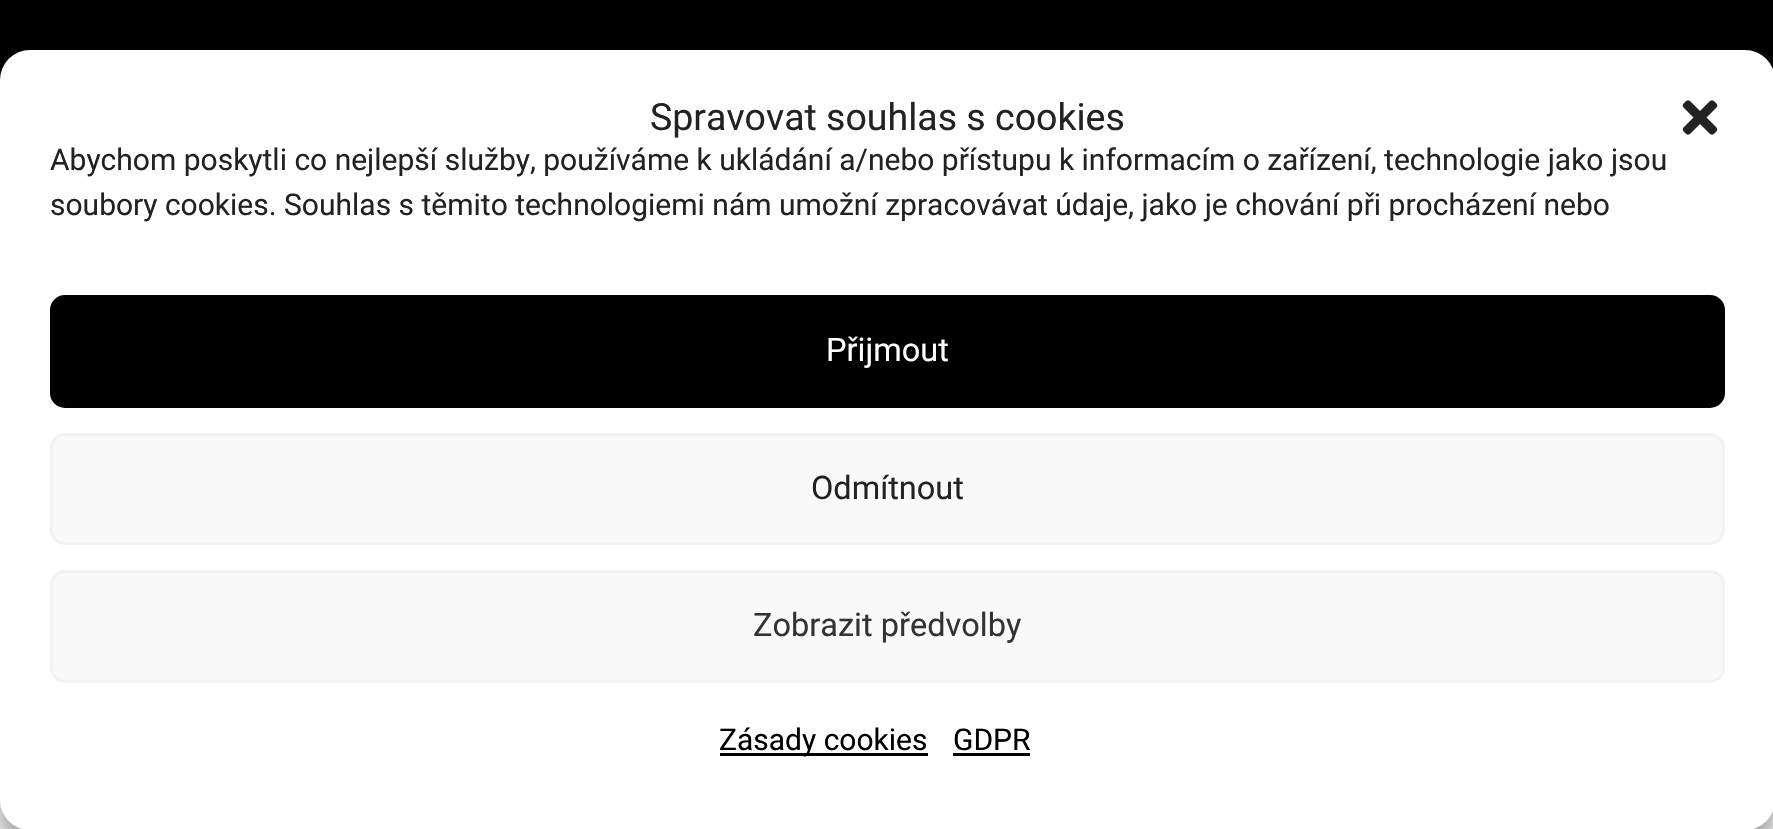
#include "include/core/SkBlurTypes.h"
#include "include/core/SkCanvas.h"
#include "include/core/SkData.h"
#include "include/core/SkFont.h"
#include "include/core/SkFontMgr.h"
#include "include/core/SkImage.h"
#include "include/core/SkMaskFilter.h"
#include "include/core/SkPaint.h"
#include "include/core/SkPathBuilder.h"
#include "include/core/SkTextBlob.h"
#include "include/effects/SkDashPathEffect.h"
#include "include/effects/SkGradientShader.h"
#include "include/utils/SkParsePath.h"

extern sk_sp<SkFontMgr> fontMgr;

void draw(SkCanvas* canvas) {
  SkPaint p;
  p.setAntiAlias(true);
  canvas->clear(SK_ColorWHITE);
  p.setColor(SK_ColorBLACK);
  canvas->drawRect(SkRect::MakeLTRB(0, 0, 1773, 80), p);
  p.setColor(SkColorSetARGB(59, 0, 0, 0));
  p.setMaskFilter(SkMaskFilter::MakeBlur(kNormal_SkBlurStyle, 7.5f));
  canvas->drawRoundRect(SkRect::MakeLTRB(0, 65, 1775, 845), 30, 30, p);
  p.setMaskFilter(nullptr);
  p.setColor(SkColorSetARGB(48, 0, 0, 0));
  p.setMaskFilter(SkMaskFilter::MakeBlur(kNormal_SkBlurStyle, 25));
  canvas->drawRoundRect(SkRect::MakeLTRB(0, 75, 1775, 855), 30, 30, p);
  p.setMaskFilter(nullptr);
  p.setColor(SK_ColorWHITE);
  canvas->drawRoundRect(SkRect::MakeLTRB(0, 50, 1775, 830), 30, 30, p);
  canvas->drawImageRect(SkImages::DeferredFromEncodedData(SkData::MakeFromFileName("images/1.png")), SkRect::MakeLTRB(1682, 100, 1718, 135), SkSamplingOptions());
  p.setColor(SK_ColorBLACK);
  canvas->drawRoundRect(SkRect::MakeLTRB(51.5f, 296.5f, 1723.5f, 406.5f), 13.5f, 13.5f, p);
  p.setStyle(SkPaint::kStroke_Style);
  p.setStrokeWidth(3);
  canvas->drawRoundRect(SkRect::MakeLTRB(51.5f, 296.5f, 1723.5f, 406.5f), 13.5f, 13.5f, p);
  p.setStyle(SkPaint::kFill_Style);
  p.setColor(SkColorSetRGB(249, 249, 249));
  canvas->drawRoundRect(SkRect::MakeLTRB(51.5f, 434.5f, 1723.5f, 543.5f), 13.5f, 13.5f, p);
  p.setStyle(SkPaint::kStroke_Style);
  p.setColor(SkColorSetRGB(242, 242, 242));
  canvas->drawRoundRect(SkRect::MakeLTRB(51.5f, 434.5f, 1723.5f, 543.5f), 13.5f, 13.5f, p);
  p.setStyle(SkPaint::kFill_Style);
  p.setColor(SkColorSetRGB(249, 249, 249));
  canvas->drawRoundRect(SkRect::MakeLTRB(51.5f, 571.5f, 1723.5f, 681.5f), 13.5f, 13.5f, p);
  p.setStyle(SkPaint::kStroke_Style);
  p.setColor(SkColorSetRGB(242, 242, 242));
  canvas->drawRoundRect(SkRect::MakeLTRB(51.5f, 571.5f, 1723.5f, 681.5f), 13.5f, 13.5f, p);
  p.setStyle(SkPaint::kFill_Style);
  p.setColor(SK_ColorBLACK);
  canvas->drawRect(SkRect::MakeLTRB(720, 753, 928, 756), p);
  canvas->drawRect(SkRect::MakeLTRB(953, 753, 1030, 756), p);
  SkFont font1(fontMgr->matchFamilyStyle("Roboto", SkFontStyle::Normal()), 37.5f);
  font1.setSubpixel(true);
  p.setColor(SkColorSetRGB(34, 34, 34));
  canvas->drawString("Spravovat souhlas s cookies", 650, 130, font1, p);
  SkFont font2(fontMgr->matchFamilyStyle("Roboto", SkFontStyle::Normal()), 30);
  font2.setSubpixel(true);
  canvas->drawString("Abychom poskytli co nejlepší služby, používáme k ukládání a/nebo přístupu k informacím o zařízení, technologie jako jsou", 50, 170, font2, p);
  canvas->drawString("soubory cookies. Souhlas s těmito technologiemi nám umožní zpracovávat údaje, jako je chování při procházení nebo", 50, 215, font2, p);
  SkFont font3(fontMgr->matchFamilyStyle("Roboto", SkFontStyle::Normal()), 32.5f);
  font3.setSubpixel(true);
  p.setColor(SK_ColorWHITE);
  canvas->drawString("Přijmout", 826, 361, font3, p);
  p.setColor(SkColorSetRGB(34, 34, 34));
  canvas->drawString("Odmítnout", 811, 499, font3, p);
  p.setColor(SkColorSetRGB(51, 51, 51));
  canvas->drawString("Zobrazit předvolby", 753, 636, font3, p);
  p.setColor(SK_ColorBLACK);
  canvas->drawString("Zásady cookies", 719, 750, font2, p);
  canvas->drawString("GDPR", 953, 750, font2, p);
}
